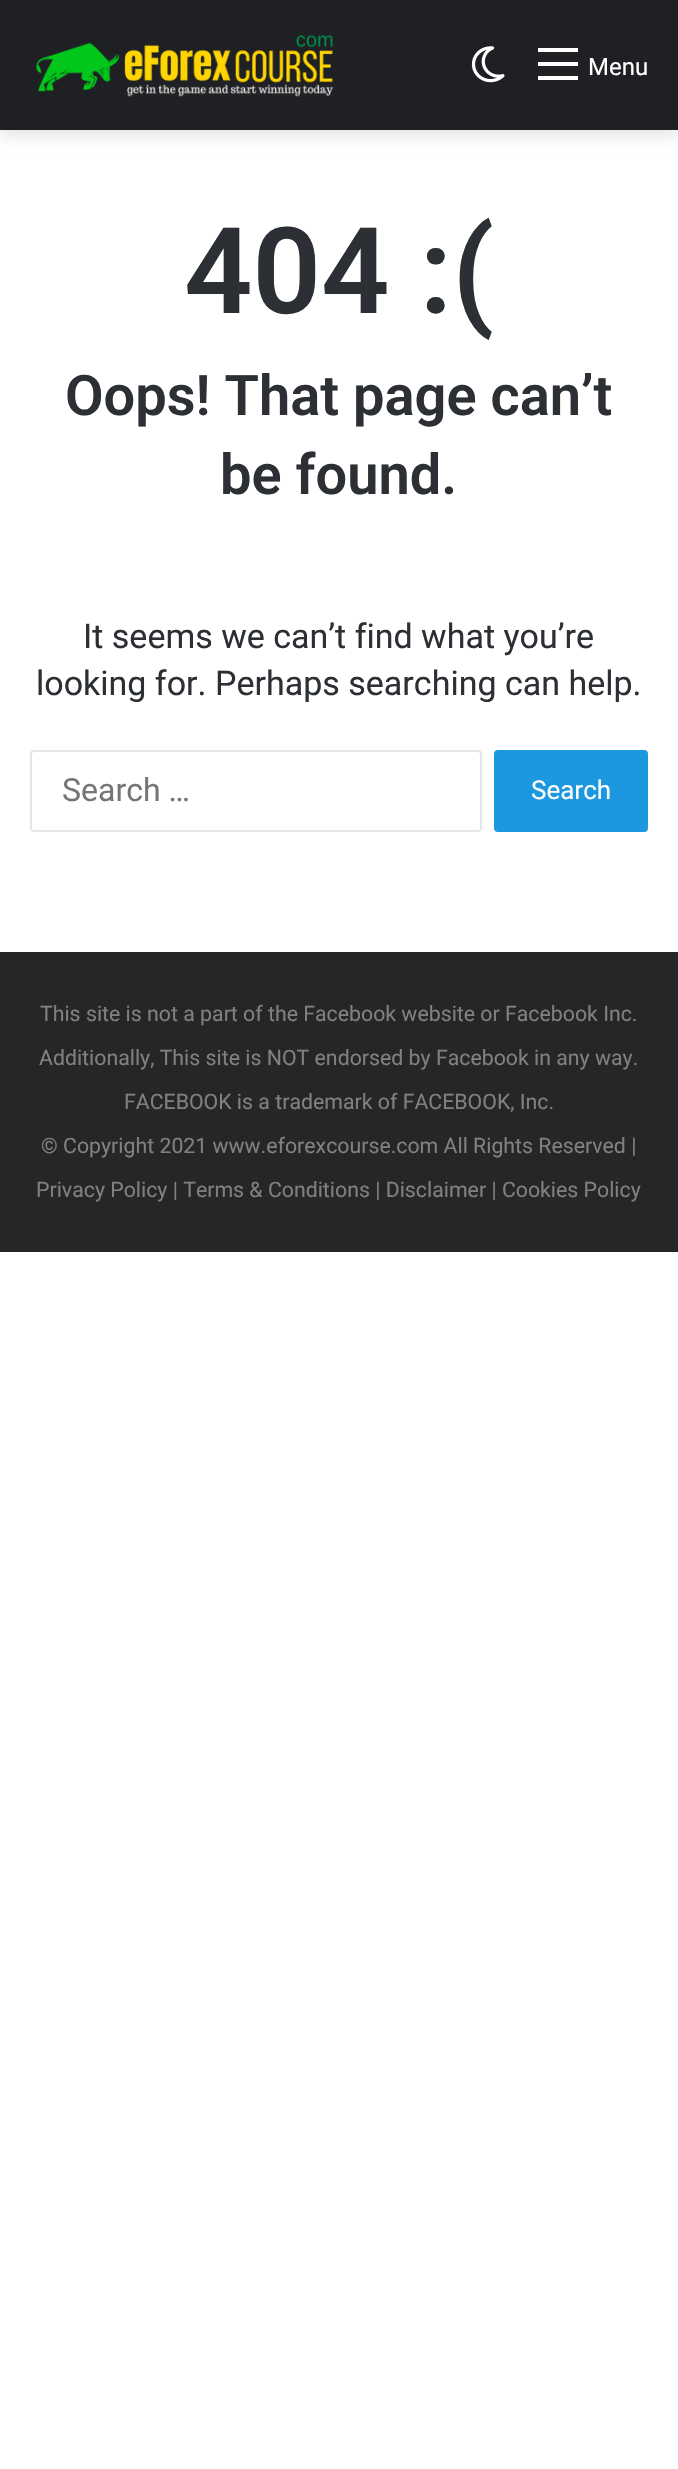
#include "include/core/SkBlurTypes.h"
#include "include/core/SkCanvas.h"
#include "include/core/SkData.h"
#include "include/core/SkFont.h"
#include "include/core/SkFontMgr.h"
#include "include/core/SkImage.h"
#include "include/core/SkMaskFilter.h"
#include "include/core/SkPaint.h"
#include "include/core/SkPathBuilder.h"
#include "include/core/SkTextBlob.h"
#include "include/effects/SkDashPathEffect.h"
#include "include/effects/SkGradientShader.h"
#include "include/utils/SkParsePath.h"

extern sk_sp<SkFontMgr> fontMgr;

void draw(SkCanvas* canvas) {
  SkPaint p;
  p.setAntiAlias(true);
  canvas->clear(SK_ColorWHITE);
  p.setColor(SkColorSetARGB(26, 0, 0, 0));
  p.setMaskFilter(SkMaskFilter::MakeBlur(kNormal_SkBlurStyle, 7));
  canvas->drawRect(SkRect::MakeLTRB(0, 6, 678, 136), p);
  p.setMaskFilter(nullptr);
  p.setColor(SkColorSetRGB(31, 32, 36));
  canvas->drawRect(SkRect::MakeLTRB(0, 0, 678, 130), p);
  canvas->drawImageRect(SkImages::DeferredFromEncodedData(SkData::MakeFromFileName("images/1.png")), SkRect::MakeLTRB(36, 35, 334, 97), SkSamplingOptions());
  canvas->drawImageRect(SkImages::DeferredFromEncodedData(SkData::MakeFromFileName("images/2.png")), SkRect::MakeLTRB(471, 46, 505, 83), SkSamplingOptions());
  p.setColor(SK_ColorWHITE);
  canvas->drawRect(SkRect::MakeLTRB(538, 62, 578, 66), p);
  canvas->drawRect(SkRect::MakeLTRB(538, 48, 578, 52), p);
  canvas->drawRect(SkRect::MakeLTRB(538, 76, 578, 80), p);
  p.setStyle(SkPaint::kStroke_Style);
  p.setStrokeWidth(2);
  p.setColor(SkColorSetRGB(230, 230, 230));
  canvas->drawRoundRect(SkRect::MakeLTRB(31, 751, 481, 831), 3, 3, p);
  p.setStyle(SkPaint::kFill_Style);
  p.setColor(SkColorSetRGB(27, 152, 224));
  canvas->drawRoundRect(SkRect::MakeLTRB(494, 750, 648, 832), 4, 4, p);
  p.setColor(SkColorSetRGB(38, 38, 38));
  canvas->drawRect(SkRect::MakeLTRB(0, 952, 678, 1252), p);
  SkFont font1(fontMgr->matchFamilyStyle("Roboto", SkFontStyle::Normal()), 24);
  font1.setSubpixel(true);
  p.setColor(SK_ColorWHITE);
  canvas->drawString("Menu", 588, 75, font1, p);
  SkFont font2(fontMgr->matchFamilyStyle("Roboto", SkFontStyle(600, SkFontStyle::kNormal_Width, SkFontStyle::kUpright_Slant)), 120);
  font2.setSubpixel(true);
  p.setColor(SkColorSetRGB(44, 47, 52));
  canvas->drawString("404 :(", 184, 313, font2, p);
  SkFont font3(fontMgr->matchFamilyStyle("Roboto", SkFontStyle(600, SkFontStyle::kNormal_Width, SkFontStyle::kUpright_Slant)), 56);
  font3.setSubpixel(true);
  canvas->drawString("Oops! That page can’t", 65, 415, font3, p);
  canvas->drawString("be found.", 220, 494, font3, p);
  SkFont font4(fontMgr->matchFamilyStyle("Roboto", SkFontStyle::Normal()), 34);
  font4.setSubpixel(true);
  canvas->drawString("It seems we can’t find what you’re", 83, 648, font4, p);
  canvas->drawString("looking for. Perhaps searching can help.", 36, 695, font4, p);
  SkFont font5(fontMgr->matchFamilyStyle("Roboto", SkFontStyle::Normal()), 32);
  font5.setSubpixel(true);
  p.setColor(SkColorSetRGB(117, 117, 117));
  canvas->drawString("Search …", 62, 801, font5, p);
  SkFont font6(fontMgr->matchFamilyStyle("Roboto", SkFontStyle::Normal()), 26);
  font6.setSubpixel(true);
  p.setColor(SK_ColorWHITE);
  canvas->drawString("Search", 531, 799, font6, p);
  SkFont font7(fontMgr->matchFamilyStyle("Roboto", SkFontStyle::Normal()), 21.3f);
  font7.setSubpixel(true);
  p.setColor(SkColorSetRGB(128, 128, 128));
  canvas->drawString("This site is not a part of the Facebook website or Facebook Inc.", 40, 1021, font7, p);
  canvas->drawString("Additionally, This site is NOT endorsed by Facebook in any way.", 39, 1065, font7, p);
  canvas->drawString("FACEBOOK is a trademark of FACEBOOK, Inc.", 124, 1109, font7, p);
  canvas->drawString("© Copyright 2021 www.eforexcourse.com All Rights Reserved |", 41, 1153, font7, p);
  canvas->drawString("Privacy Policy | Terms & Conditions | Disclaimer | Cookies Policy", 36, 1197, font7, p);
}
